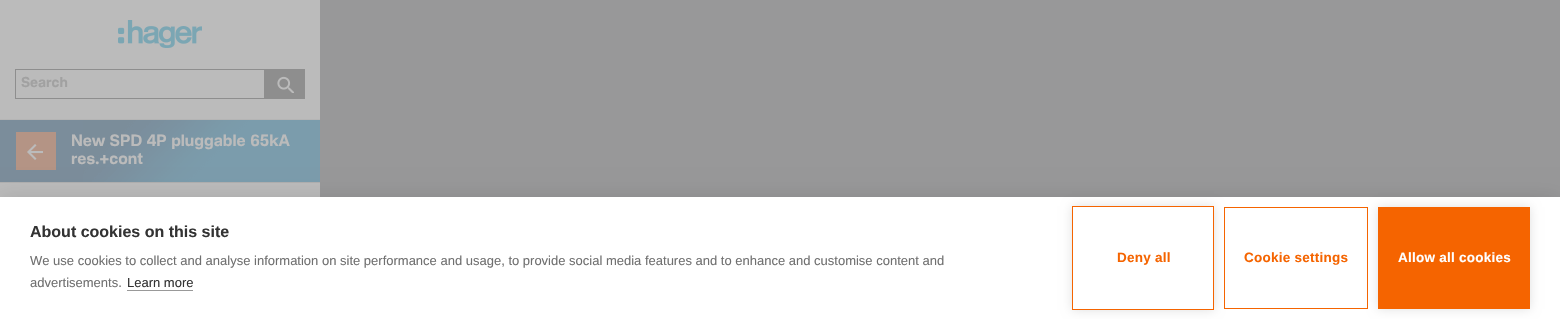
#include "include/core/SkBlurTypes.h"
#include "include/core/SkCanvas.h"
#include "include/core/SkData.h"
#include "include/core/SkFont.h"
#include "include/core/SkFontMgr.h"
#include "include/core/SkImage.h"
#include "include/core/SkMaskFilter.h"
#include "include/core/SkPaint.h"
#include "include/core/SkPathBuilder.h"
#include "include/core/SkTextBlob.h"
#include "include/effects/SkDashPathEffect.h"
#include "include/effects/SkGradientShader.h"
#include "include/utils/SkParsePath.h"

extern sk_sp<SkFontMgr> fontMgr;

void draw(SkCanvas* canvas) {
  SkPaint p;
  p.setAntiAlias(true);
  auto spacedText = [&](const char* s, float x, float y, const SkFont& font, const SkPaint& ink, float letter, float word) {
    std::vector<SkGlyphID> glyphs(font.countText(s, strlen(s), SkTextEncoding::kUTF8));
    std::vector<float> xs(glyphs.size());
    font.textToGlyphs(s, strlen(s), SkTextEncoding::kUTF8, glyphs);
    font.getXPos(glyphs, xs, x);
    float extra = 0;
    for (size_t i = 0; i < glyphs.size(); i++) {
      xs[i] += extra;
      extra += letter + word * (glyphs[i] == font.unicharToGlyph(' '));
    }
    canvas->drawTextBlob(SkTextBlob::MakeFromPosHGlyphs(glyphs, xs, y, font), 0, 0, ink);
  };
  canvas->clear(SkColorSetRGB(152, 152, 153));
  p.setColor(SkColorSetRGB(187, 187, 187));
  canvas->drawRect(SkRect::MakeLTRB(0, 0, 320, 197), p);
  canvas->drawImageRect(SkImages::DeferredFromEncodedData(SkData::MakeFromFileName("images/1.png")), SkRect::MakeLTRB(118, 20, 202, 48), SkSamplingOptions());
  p.setStyle(SkPaint::kStroke_Style);
  p.setStrokeWidth(1);
  p.setColor(SkColorSetRGB(142, 142, 142));
  canvas->drawRect(SkRect::MakeLTRB(15.5f, 69.5f, 264.5f, 98.5f), p);
  p.setStyle(SkPaint::kFill_Style);
  canvas->drawRect(SkRect::MakeLTRB(265, 69, 305, 99), p);
  canvas->drawImageRect(SkImages::DeferredFromEncodedData(SkData::MakeFromFileName("images/2.png")), SkRect::MakeLTRB(277, 76, 294, 93), SkSamplingOptions());
  p.setColor(SkColorSetRGB(181, 181, 181));
  canvas->drawRect(SkRect::MakeLTRB(0, 119, 320, 120), p);
  p.setColor(SkColorSetRGB(123, 141, 155));
  canvas->drawRect(SkRect::MakeLTRB(0, 120, 83, 182), p);
  canvas->drawImageRect(SkImages::DeferredFromEncodedData(SkData::MakeFromFileName("images/3.png")), SkRect::MakeLTRB(83, 120, 320, 182), SkSamplingOptions());
  p.setColor(SkColorSetRGB(175, 175, 175));
  canvas->drawRect(SkRect::MakeLTRB(0, 182, 320, 183), p);
  canvas->drawImageRect(SkImages::DeferredFromEncodedData(SkData::MakeFromFileName("images/4.png")), SkRect::MakeLTRB(16, 132, 56, 170), SkSamplingOptions());
  p.setColor(SkColorSetARGB(26, 0, 0, 0));
  p.setMaskFilter(SkMaskFilter::MakeBlur(kNormal_SkBlurStyle, 10));
  canvas->drawRect(SkRect::MakeLTRB(0, 197, 1560, 319), p);
  p.setMaskFilter(nullptr);
  p.setColor(SK_ColorWHITE);
  canvas->drawRect(SkRect::MakeLTRB(0, 197, 1560, 319), p);
  p.setColor(SkColorSetRGB(153, 153, 153));
  canvas->drawRect(SkRect::MakeLTRB(127, 290, 193, 291), p);
  canvas->save();
  canvas->clipPath(SkPathBuilder(SkPathFillType::kEvenOdd).moveTo(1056, 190).lineTo(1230, 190).lineTo(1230, 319).lineTo(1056, 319).close().moveTo(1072, 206).lineTo(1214, 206).lineTo(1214, 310).lineTo(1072, 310).close().detach(), true);
  p.setColor(SkColorSetARGB(31, 0, 0, 0));
  p.setMaskFilter(SkMaskFilter::MakeBlur(kNormal_SkBlurStyle, 5));
  canvas->drawRect(SkRect::MakeLTRB(1072, 206, 1214, 310), p);
  p.setMaskFilter(nullptr);
  canvas->restore();
  p.setStyle(SkPaint::kStroke_Style);
  p.setColor(SkColorSetRGB(245, 100, 0));
  canvas->drawRect(SkRect::MakeLTRB(1072.5f, 206.5f, 1213.5f, 309.5f), p);
  canvas->drawRect(SkRect::MakeLTRB(1224.5f, 207.5f, 1367.5f, 308.5f), p);
  p.setStyle(SkPaint::kFill_Style);
  p.setColor(SkColorSetARGB(31, 0, 0, 0));
  p.setMaskFilter(SkMaskFilter::MakeBlur(kNormal_SkBlurStyle, 5));
  canvas->drawRect(SkRect::MakeLTRB(1378, 207, 1530, 309), p);
  p.setMaskFilter(nullptr);
  p.setColor(SkColorSetRGB(245, 100, 0));
  canvas->drawRect(SkRect::MakeLTRB(1378, 207, 1530, 309), p);
  SkFont font1(fontMgr->matchFamilyStyle("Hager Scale", SkFontStyle::Bold()), 14);
  font1.setSubpixel(true);
  p.setColor(SkColorSetRGB(161, 161, 161));
  canvas->drawString("Search", 21, 87, font1, p);
  SkFont font2(fontMgr->matchFamilyStyle("Hager Scale", SkFontStyle::Bold()), 16);
  font2.setSubpixel(true);
  p.setColor(SkColorSetRGB(187, 187, 187));
  canvas->drawString("New SPD 4P pluggable 65kA", 71, 146, font2, p);
  canvas->drawString("res.+cont", 71, 164, font2, p);
  SkFont font3(fontMgr->matchFamilyStyle("Liberation Sans", SkFontStyle::Bold()), 16);
  font3.setSubpixel(true);
  p.setColor(SkColorSetRGB(51, 51, 51));
  canvas->drawString("About cookies on this site", 30, 237, font3, p);
  SkFont font4(fontMgr->matchFamilyStyle("Liberation Sans", SkFontStyle::Normal()), 13);
  font4.setSubpixel(true);
  p.setColor(SkColorSetRGB(112, 112, 112));
  canvas->drawString("We use cookies to collect and analyse information on site performance and usage, to provide social media features and to enhance and customise content and", 30, 265, font4, p);
  canvas->drawString("advertisements.", 30, 287, font4, p);
  p.setColor(SkColorSetRGB(51, 51, 51));
  canvas->drawString("Learn more", 127, 287, font4, p);
  SkFont font5(fontMgr->matchFamilyStyle("Liberation Sans", SkFontStyle::Bold()), 13.5f);
  font5.setSubpixel(true);
  p.setColor(SkColorSetRGB(245, 100, 0));
  spacedText("Deny all", 1117, 262, font5, p, 0.25f, 0);
  spacedText("Cookie settings", 1244, 262, font5, p, 0.25f, 0);
  p.setColor(SK_ColorWHITE);
  spacedText("Allow all cookies", 1398, 262, font5, p, 0.25f, 0);
}
